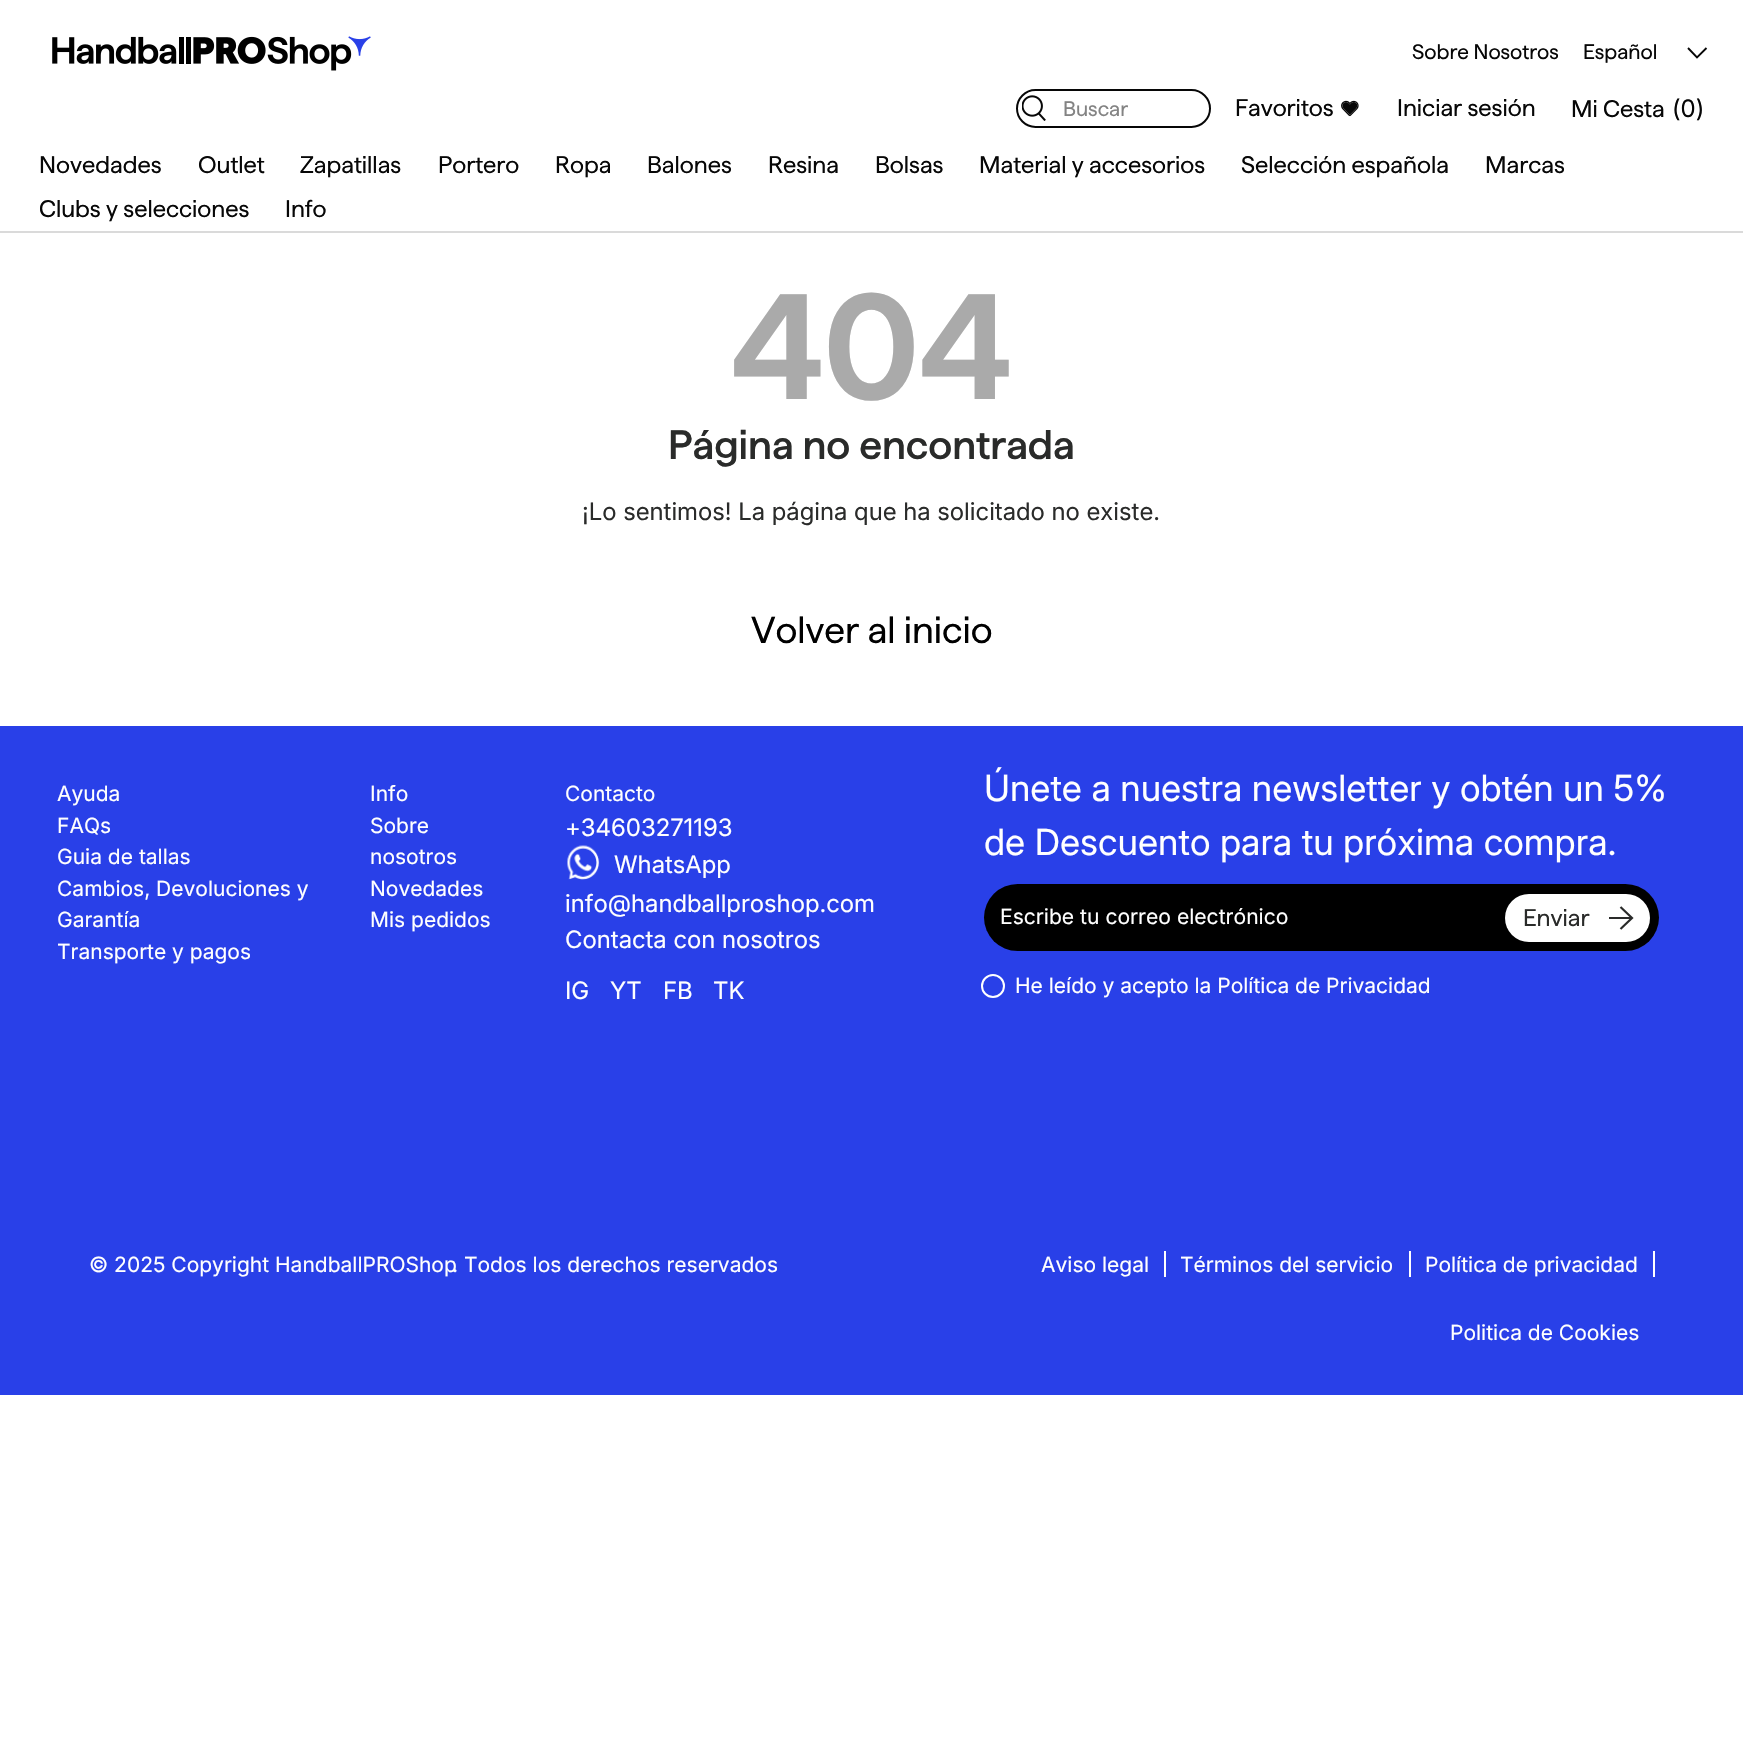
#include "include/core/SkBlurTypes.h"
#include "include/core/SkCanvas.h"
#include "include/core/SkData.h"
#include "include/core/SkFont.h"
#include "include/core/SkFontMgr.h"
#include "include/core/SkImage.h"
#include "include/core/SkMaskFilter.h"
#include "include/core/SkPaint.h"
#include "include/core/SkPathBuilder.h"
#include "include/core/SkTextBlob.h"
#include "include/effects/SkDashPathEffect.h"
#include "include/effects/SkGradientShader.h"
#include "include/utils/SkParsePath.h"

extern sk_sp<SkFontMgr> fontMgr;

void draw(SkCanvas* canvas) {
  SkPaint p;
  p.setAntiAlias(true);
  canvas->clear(SK_ColorWHITE);
  p.setColor(SkColorSetRGB(218, 218, 218));
  canvas->drawRect(SkRect::MakeLTRB(0, 231, 1743, 233), p);
  canvas->drawImageRect(SkImages::DeferredFromEncodedData(SkData::MakeFromFileName("images/1.png")), SkRect::MakeLTRB(52, 36, 371, 71), SkSamplingOptions());
  p.setStyle(SkPaint::kStroke_Style);
  p.setStrokeWidth(1.9f);
  p.setColor(SkColorSetRGB(7, 7, 7));
  canvas->drawPath(SkPathBuilder().moveTo(1706.5f, 48).lineTo(1697, 57.5f).lineTo(1688, 48).detach(), p);
  p.setStrokeWidth(2);
  canvas->drawRoundRect(SkRect::MakeLTRB(1017, 90, 1210, 127), 18.5f, 18.5f, p);
  canvas->drawImageRect(SkImages::DeferredFromEncodedData(SkData::MakeFromFileName("images/2.png")), SkRect::MakeLTRB(1022, 95, 1046, 121), SkSamplingOptions());
  canvas->drawImageRect(SkImages::DeferredFromEncodedData(SkData::MakeFromFileName("images/3.png")), SkRect::MakeLTRB(1341, 100, 1359, 117), SkSamplingOptions());
  p.setStyle(SkPaint::kFill_Style);
  p.setColor(SkColorSetRGB(41, 64, 232));
  canvas->drawRect(SkRect::MakeLTRB(0, 726, 1743, 1395), p);
  canvas->drawImageRect(SkImages::DeferredFromEncodedData(SkData::MakeFromFileName("images/4.png")), SkRect::MakeLTRB(567, 845, 600, 880), SkSamplingOptions());
  p.setColor(SK_ColorBLACK);
  canvas->drawRoundRect(SkRect::MakeLTRB(984, 884, 1659, 951), 33.5f, 33.5f, p);
  p.setColor(SK_ColorWHITE);
  canvas->drawRoundRect(SkRect::MakeLTRB(1505, 894, 1650, 942), 24, 24, p);
  p.setStyle(SkPaint::kStroke_Style);
  p.setStrokeWidth(2.2f);
  p.setColor(SkColorSetRGB(42, 43, 42));
  canvas->drawPath(SkPathBuilder().moveTo(1609, 918).lineTo(1631, 918).moveTo(1620.5f, 907).lineTo(1632, 918).lineTo(1620.5f, 929).detach(), p);
  p.setStrokeWidth(2);
  p.setColor(SK_ColorWHITE);
  canvas->drawCircle(993, 986, 11, p);
  p.setStyle(SkPaint::kFill_Style);
  canvas->drawRect(SkRect::MakeLTRB(1164, 1251, 1166, 1277), p);
  canvas->drawRect(SkRect::MakeLTRB(1409, 1251, 1411, 1277), p);
  canvas->drawRect(SkRect::MakeLTRB(1653, 1251, 1655, 1277), p);
  SkFont font1(fontMgr->matchFamilyStyle("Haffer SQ", SkFontStyle::Normal()), 21);
  font1.setSubpixel(true);
  p.setColor(SkColorSetRGB(7, 7, 7));
  canvas->drawString("Sobre Nosotros", 1412, 59, font1, p);
  canvas->drawString("Español", 1583, 59, font1, p);
  p.setColor(SkColorSetRGB(131, 131, 131));
  canvas->drawString("Buscar", 1063, 116, font1, p);
  SkFont font2(fontMgr->matchFamilyStyle("Haffer SQ", SkFontStyle::Normal()), 24);
  font2.setSubpixel(true);
  p.setColor(SkColorSetRGB(7, 7, 7));
  canvas->drawString("Favoritos", 1235, 116, font2, p);
  canvas->drawString("Iniciar sesión", 1397, 116, font2, p);
  canvas->drawString("Mi Cesta", 1571, 117, font2, p);
  SkFont font3(fontMgr->matchFamilyStyle("Inter", SkFontStyle::Normal()), 24);
  font3.setSubpixel(true);
  canvas->drawString("(0)", 1672, 117, font3, p);
  canvas->drawString("Novedades", 39, 173, font2, p);
  canvas->drawString("Outlet", 198, 173, font2, p);
  canvas->drawString("Zapatillas", 300, 173, font2, p);
  canvas->drawString("Portero", 438, 173, font2, p);
  canvas->drawString("Ropa", 555, 173, font2, p);
  canvas->drawString("Balones", 647, 173, font2, p);
  canvas->drawString("Resina", 768, 173, font2, p);
  canvas->drawString("Bolsas", 875, 173, font2, p);
  canvas->drawString("Material y accesorios", 979, 173, font2, p);
  canvas->drawString("Selección española", 1241, 173, font2, p);
  canvas->drawString("Marcas", 1485, 173, font2, p);
  canvas->drawString("Clubs y selecciones", 39, 217, font2, p);
  canvas->drawString("Info", 285, 217, font2, p);
  SkFont font4(fontMgr->matchFamilyStyle("Inter", SkFontStyle::Bold()), 144);
  font4.setSubpixel(true);
  p.setColor(SkColorSetRGB(170, 170, 170));
  canvas->drawString("404", 730, 399, font4, p);
  SkFont font5(fontMgr->matchFamilyStyle("Haffer SQ", SkFontStyle(500, SkFontStyle::kNormal_Width, SkFontStyle::kUpright_Slant)), 41);
  font5.setSubpixel(true);
  p.setColor(SkColorSetRGB(42, 43, 42));
  canvas->drawString("Página no encontrada", 668, 459, font5, p);
  canvas->drawString("¡Lo sentimos! La página que ha solicitado no existe.", 582, 520, font3, p);
  SkFont font6(fontMgr->matchFamilyStyle("Haffer SQ", SkFontStyle::Normal()), 37.5f);
  font6.setSubpixel(true);
  p.setColor(SK_ColorBLACK);
  canvas->drawString("Volver al inicio", 751, 643, font6, p);
  SkFont font7(fontMgr->matchFamilyStyle("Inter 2", SkFontStyle::Normal()), 21);
  font7.setSubpixel(true);
  p.setColor(SK_ColorWHITE);
  canvas->drawString("Ayuda", 57, 801, font7, p);
  canvas->drawString("FAQs", 57, 833, font7, p);
  canvas->drawString("Guia de tallas", 57, 864, font7, p);
  canvas->drawString("Cambios, Devoluciones y", 57, 896, font7, p);
  canvas->drawString("Garantía", 57, 927, font7, p);
  canvas->drawString("Transporte y pagos", 57, 959, font7, p);
  canvas->drawString("Info", 370, 801, font7, p);
  canvas->drawString("Sobre", 370, 833, font7, p);
  canvas->drawString("nosotros", 370, 864, font7, p);
  canvas->drawString("Novedades", 370, 896, font7, p);
  canvas->drawString("Mis pedidos", 370, 927, font7, p);
  canvas->drawString("Contacto", 565, 801, font7, p);
  canvas->drawString("+34603271193", 565, 836, font3, p);
  canvas->drawString("WhatsApp", 614, 873, font3, p);
  canvas->drawString("info@handballproshop.com", 565, 912, font3, p);
  canvas->drawString("Contacta con nosotros", 565, 948, font3, p);
  canvas->drawString("IG", 565, 999, font3, p);
  canvas->drawString("YT", 610, 999, font3, p);
  canvas->drawString("FB", 663, 999, font3, p);
  canvas->drawString("TK", 713, 999, font3, p);
  SkFont font8(fontMgr->matchFamilyStyle("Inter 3", SkFontStyle::Normal()), 36);
  font8.setSubpixel(true);
  canvas->drawString("Únete a nuestra newsletter y obtén un 5%", 984, 801, font8, p);
  canvas->drawString("de Descuento para tu próxima compra.", 984, 855, font8, p);
  SkFont font9(fontMgr->matchFamilyStyle("Inter 2", SkFontStyle::Normal()), 21.1f);
  font9.setSubpixel(true);
  canvas->drawString("Escribe tu correo electrónico", 1000, 924, font9, p);
  p.setColor(SkColorSetRGB(42, 43, 42));
  canvas->drawString("Enviar", 1523, 926, font2, p);
  p.setColor(SK_ColorWHITE);
  canvas->drawString("He leído y acepto la Política de Privacidad", 1015, 993, font7, p);
  canvas->drawString("© 2025 Copyright HandballPROShop", 89, 1272, font7, p);
  canvas->drawString(". Todos los derechos reservados", 452, 1272, font7, p);
  canvas->drawString("Aviso legal", 1041, 1272, font7, p);
  canvas->drawString("Términos del servicio", 1180, 1272, font7, p);
  canvas->drawString("Política de privacidad", 1425, 1272, font7, p);
  canvas->drawString("Politica de Cookies", 1450, 1340, font7, p);
}
